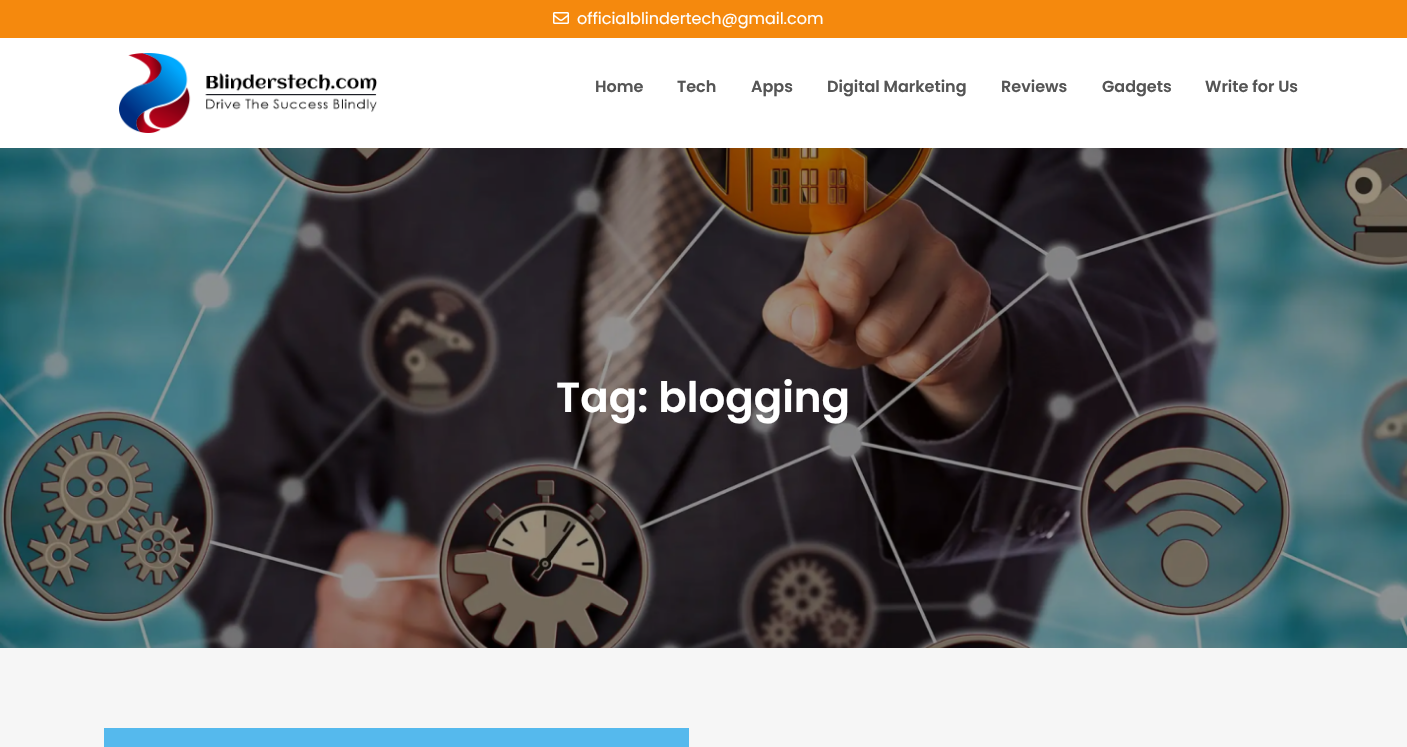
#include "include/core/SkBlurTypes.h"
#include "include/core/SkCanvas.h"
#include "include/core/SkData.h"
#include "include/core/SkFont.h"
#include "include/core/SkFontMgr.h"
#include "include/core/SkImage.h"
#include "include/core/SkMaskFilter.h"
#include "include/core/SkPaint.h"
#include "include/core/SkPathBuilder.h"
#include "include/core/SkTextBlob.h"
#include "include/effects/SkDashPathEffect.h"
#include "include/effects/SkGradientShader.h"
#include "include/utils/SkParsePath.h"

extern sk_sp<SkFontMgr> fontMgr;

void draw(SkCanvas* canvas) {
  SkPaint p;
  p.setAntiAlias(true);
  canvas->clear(SkColorSetRGB(246, 246, 246));
  p.setColor(SkColorSetRGB(245, 137, 13));
  canvas->drawRect(SkRect::MakeLTRB(0, 0, 1407, 38), p);
  canvas->drawImageRect(SkImages::DeferredFromEncodedData(SkData::MakeFromFileName("images/1.png")), SkRect::MakeLTRB(553, 12, 569, 24), SkSamplingOptions());
  p.setColor(SK_ColorWHITE);
  canvas->drawRect(SkRect::MakeLTRB(0, 38, 1407, 148), p);
  canvas->drawImageRect(SkImages::DeferredFromEncodedData(SkData::MakeFromFileName("images/2.png")), SkRect::MakeLTRB(119, 53, 377, 133), SkSamplingOptions());
  canvas->drawImageRect(SkImages::DeferredFromEncodedData(SkData::MakeFromFileName("images/3.png")), SkRect::MakeLTRB(0, 148, 1407, 648), SkSamplingOptions());
  p.setColor(SkColorSetRGB(85, 185, 237));
  canvas->drawRect(SkRect::MakeLTRB(104, 728, 689, 747), p);
  SkFont font1(fontMgr->matchFamilyStyle("Poppins", SkFontStyle::Normal()), 16);
  font1.setSubpixel(true);
  p.setColor(SK_ColorWHITE);
  canvas->drawString("officialblindertech@gmail.com", 577, 24, font1, p);
  SkFont font2(fontMgr->matchFamilyStyle("Poppins", SkFontStyle(600, SkFontStyle::kNormal_Width, SkFontStyle::kUpright_Slant)), 16);
  font2.setSubpixel(true);
  p.setColor(SkColorSetRGB(85, 85, 85));
  canvas->drawString("Home", 595, 92, font2, p);
  canvas->drawString("Tech", 677, 92, font2, p);
  canvas->drawString("Apps", 751, 92, font2, p);
  canvas->drawString("Digital Marketing", 827, 92, font2, p);
  canvas->drawString("Reviews", 1001, 92, font2, p);
  canvas->drawString("Gadgets", 1102, 92, font2, p);
  canvas->drawString("Write for Us", 1205, 92, font2, p);
  SkFont font3(fontMgr->matchFamilyStyle("Poppins", SkFontStyle(600, SkFontStyle::kNormal_Width, SkFontStyle::kUpright_Slant)), 42);
  font3.setSubpixel(true);
  p.setColor(SK_ColorWHITE);
  canvas->drawString("Tag: blogging", 556, 412, font3, p);
}
